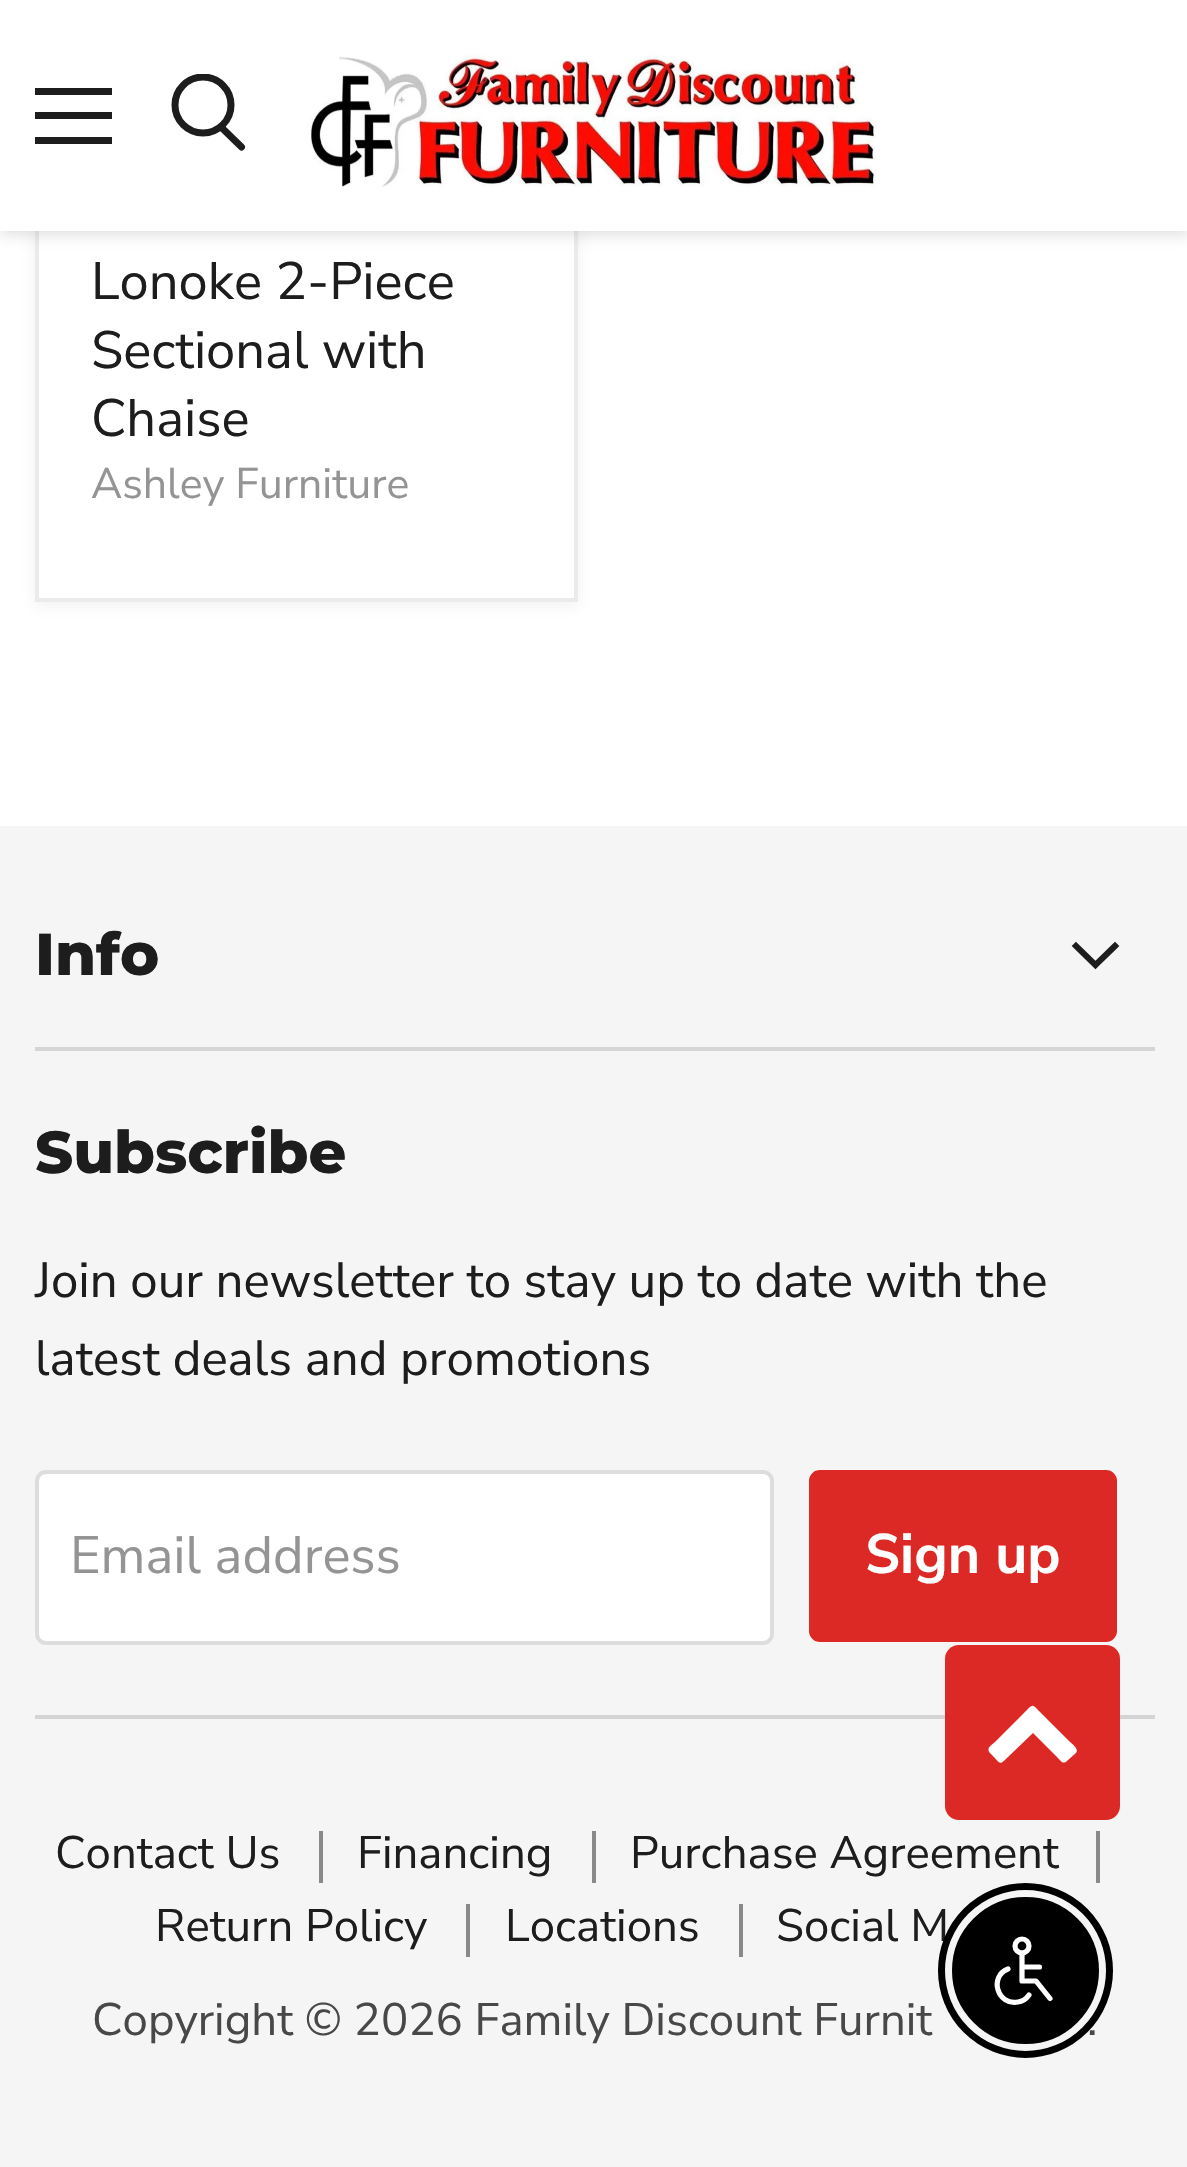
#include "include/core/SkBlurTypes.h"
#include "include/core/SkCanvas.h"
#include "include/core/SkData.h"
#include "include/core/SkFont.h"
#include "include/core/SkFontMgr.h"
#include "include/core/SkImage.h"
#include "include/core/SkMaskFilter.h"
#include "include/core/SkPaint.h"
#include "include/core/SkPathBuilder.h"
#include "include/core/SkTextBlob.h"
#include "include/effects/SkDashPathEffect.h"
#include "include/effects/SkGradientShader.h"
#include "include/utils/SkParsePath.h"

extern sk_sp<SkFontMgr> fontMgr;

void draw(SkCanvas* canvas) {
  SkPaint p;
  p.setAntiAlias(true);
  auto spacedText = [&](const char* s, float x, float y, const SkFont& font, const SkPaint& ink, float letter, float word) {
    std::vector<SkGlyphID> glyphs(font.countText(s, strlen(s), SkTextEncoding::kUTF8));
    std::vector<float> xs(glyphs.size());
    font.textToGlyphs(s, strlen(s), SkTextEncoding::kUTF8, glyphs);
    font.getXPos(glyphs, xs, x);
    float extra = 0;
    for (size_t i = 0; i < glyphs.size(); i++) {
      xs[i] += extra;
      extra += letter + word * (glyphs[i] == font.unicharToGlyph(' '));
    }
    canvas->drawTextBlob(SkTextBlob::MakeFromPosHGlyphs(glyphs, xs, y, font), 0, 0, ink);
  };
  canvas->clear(SK_ColorWHITE);
  p.setColor(SkColorSetARGB(28, 128, 128, 128));
  p.setMaskFilter(SkMaskFilter::MakeBlur(kNormal_SkBlurStyle, 7));
  canvas->drawRect(SkRect::MakeLTRB(35, 0, 578, 606), p);
  p.setMaskFilter(nullptr);
  p.setColor(SK_ColorWHITE);
  canvas->drawRect(SkRect::MakeLTRB(39, 231, 574, 598), p);
  p.setStyle(SkPaint::kStroke_Style);
  p.setStrokeWidth(4);
  p.setColor(SkColorSetRGB(235, 235, 235));
  canvas->drawRect(SkRect::MakeLTRB(37, -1, 576, 600), p);
  p.setStyle(SkPaint::kFill_Style);
  p.setColor(SkColorSetARGB(64, 128, 128, 128));
  p.setMaskFilter(SkMaskFilter::MakeBlur(kNormal_SkBlurStyle, 7));
  canvas->drawRect(SkRect::MakeLTRB(0, 4, 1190, 235), p);
  p.setMaskFilter(nullptr);
  p.setColor(SK_ColorWHITE);
  canvas->drawRect(SkRect::MakeLTRB(0, 0, 1187, 231), p);
  p.setColor(SkColorSetRGB(29, 29, 29));
  canvas->drawRect(SkRect::MakeLTRB(35, 88, 112, 95), p);
  canvas->drawRect(SkRect::MakeLTRB(35, 112, 112, 119), p);
  canvas->drawRect(SkRect::MakeLTRB(35, 137, 112, 144), p);
  p.setStyle(SkPaint::kStroke_Style);
  p.setStrokeWidth(7);
  p.setStrokeCap(SkPaint::kRound_Cap);
  canvas->drawPath(SkPathBuilder().moveTo(241.5f, 147).lineTo(222, 128).detach(), p);
  canvas->save();
  canvas->clipRect(SkRect::MakeLTRB(168, 74, 249, 158));
  p.setStrokeCap(SkPaint::kButt_Cap);
  canvas->drawCircle(203, 105, 28, p);
  canvas->restore();
  canvas->drawImageRect(SkImages::DeferredFromEncodedData(SkData::MakeFromFileName("images/1.png")), SkRect::MakeLTRB(310, 53, 876, 187), SkSamplingOptions());
  p.setStyle(SkPaint::kFill_Style);
  p.setColor(SkColorSetRGB(245, 245, 245));
  canvas->drawRect(SkRect::MakeLTRB(0, 826, 1187, 2167), p);
  p.setColor(SkColorSetRGB(213, 213, 213));
  canvas->drawRect(SkRect::MakeLTRB(35, 1047, 1155, 1051), p);
  p.setStyle(SkPaint::kStroke_Style);
  p.setStrokeWidth(6.1f);
  p.setStrokeCap(SkPaint::kSquare_Cap);
  p.setColor(SkColorSetRGB(29, 29, 29));
  canvas->drawPath(SkPathBuilder().moveTo(1095.5f, 965).lineTo(1115, 946).moveTo(1095.5f, 965).lineTo(1076, 946).detach(), p);
  p.setStyle(SkPaint::kFill_Style);
  p.setColor(SkColorSetRGB(213, 213, 213));
  canvas->drawRect(SkRect::MakeLTRB(35, 1715, 1155, 1719), p);
  p.setColor(SK_ColorWHITE);
  canvas->drawRoundRect(SkRect::MakeLTRB(37, 1472, 772, 1643), 9, 9, p);
  p.setStyle(SkPaint::kStroke_Style);
  p.setStrokeWidth(4);
  p.setStrokeCap(SkPaint::kButt_Cap);
  p.setColor(SkColorSetRGB(221, 221, 221));
  canvas->drawRoundRect(SkRect::MakeLTRB(37, 1472, 772, 1643), 9, 9, p);
  p.setStyle(SkPaint::kFill_Style);
  p.setColor(SkColorSetRGB(221, 41, 37));
  canvas->drawRoundRect(SkRect::MakeLTRB(811, 1472, 1115, 1640), 9, 9, p);
  p.setStyle(SkPaint::kStroke_Style);
  canvas->drawRoundRect(SkRect::MakeLTRB(811, 1472, 1115, 1640), 9, 9, p);
  p.setStyle(SkPaint::kFill_Style);
  p.setColor(SkColorSetRGB(137, 137, 137));
  canvas->drawRect(SkRect::MakeLTRB(319, 1831, 323, 1883), p);
  canvas->drawRect(SkRect::MakeLTRB(592, 1831, 596, 1883), p);
  canvas->drawRect(SkRect::MakeLTRB(1096, 1831, 1100, 1883), p);
  canvas->drawRect(SkRect::MakeLTRB(466, 1904, 470, 1957), p);
  canvas->drawRect(SkRect::MakeLTRB(739, 1904, 743, 1957), p);
  p.setColor(SkColorSetRGB(221, 41, 37));
  canvas->drawRoundRect(SkRect::MakeLTRB(945, 1645, 1120, 1820), 14, 14, p);
  p.setColor(SK_ColorWHITE);
  canvas->drawPath(SkPathBuilder().moveTo(1076, 1753).lineTo(1068, 1760).cubicTo(1063, 1765, 1062, 1762, 1057, 1757).lineTo(1033, 1733).lineTo(1008, 1757).cubicTo(999, 1766, 1001, 1764, 991, 1754).cubicTo(985, 1748, 991, 1746, 996, 1741).lineTo(1023, 1714).cubicTo(1034, 1703, 1031, 1703, 1042, 1714).lineTo(1069, 1741).cubicTo(1070, 1742, 1080, 1749, 1076, 1753).close().detach(), p);
  SkFont font1(fontMgr->matchFamilyStyle("Nunito Sans", SkFontStyle::Normal()), 52.5f);
  font1.setSubpixel(true);
  p.setColor(SkColorSetRGB(29, 29, 29));
  canvas->drawString("Lonoke 2-Piece", 91, 299, font1, p);
  canvas->drawString("Sectional with", 91, 368, font1, p);
  canvas->drawString("Chaise", 91, 436, font1, p);
  SkFont font2(fontMgr->matchFamilyStyle("Nunito Sans", SkFontStyle::Normal()), 42.75f);
  font2.setSubpixel(true);
  p.setColor(SkColorSetRGB(148, 148, 148));
  canvas->drawString("Ashley Furniture", 91, 498, font2, p);
  SkFont font3(fontMgr->matchFamilyStyle("Montserrat", SkFontStyle(800, SkFontStyle::kNormal_Width, SkFontStyle::kUpright_Slant)), 59);
  font3.setSubpixel(true);
  p.setColor(SkColorSetRGB(29, 29, 29));
  canvas->drawString("Info", 35, 975, font3, p);
  canvas->drawString("Subscribe", 35, 1173, font3, p);
  SkFont font4(fontMgr->matchFamilyStyle("Nunito Sans", SkFontStyle::Normal()), 49.25f);
  font4.setSubpixel(true);
  spacedText("Join our newsletter to stay up to date with the", 35, 1297, font4, p, 0, -0.1f);
  canvas->drawString("latest deals and promotions", 35, 1375, font4, p);
  p.setColor(SkColorSetRGB(148, 148, 148));
  canvas->drawString("Email address", 70, 1573, font1, p);
  SkFont font5(fontMgr->matchFamilyStyle("Nunito Sans", SkFontStyle::Bold()), 55.5f);
  font5.setSubpixel(true);
  p.setColor(SK_ColorWHITE);
  canvas->drawString("Sign up", 865, 1573, font5, p);
  SkFont font6(fontMgr->matchFamilyStyle("Nunito Sans", SkFontStyle::Normal()), 45.5f);
  font6.setSubpixel(true);
  p.setColor(SkColorSetRGB(29, 29, 29));
  canvas->drawString("Contact Us", 55, 1868, font6, p);
  canvas->drawString("Financing", 357, 1868, font6, p);
  canvas->drawString("Purchase Agreement", 630, 1868, font6, p);
  canvas->drawString("Return Policy", 155, 1941, font6, p);
  canvas->drawString("Locations", 505, 1941, font6, p);
  canvas->drawString("Social M", 776, 1941, font6, p);
  p.setColor(SkColorSetRGB(72, 72, 72));
  canvas->drawString("Copyright © 2026 Family Discount Furnit", 92, 2035, font6, p);
  canvas->drawString(".", 1087, 2035, font6, p);
  p.setStyle(SkPaint::kStroke_Style);
  p.setStrokeWidth(7);
  p.setColor(SK_ColorBLACK);
  canvas->drawCircle(1025.5f, 1970.5f, 84, p);
  p.setStyle(SkPaint::kFill_Style);
  canvas->drawCircle(1025.5f, 1970.5f, 71.5f, p);
  p.setStyle(SkPaint::kStroke_Style);
  p.setStrokeWidth(4);
  canvas->drawCircle(1025.5f, 1970.5f, 71.5f, p);
  p.setStrokeWidth(5.2f);
  p.setColor(SK_ColorWHITE);
  canvas->drawCircle(1022, 1946, 7, p);
  p.setStrokeCap(SkPaint::kRound_Cap);
  p.setStrokeJoin(SkPaint::kRound_Join);
  canvas->drawPath(SkPathBuilder().moveTo(1022, 1953).lineTo(1022, 1981).lineTo(1036, 1981).lineTo(1050, 1998.5f).moveTo(1022, 1967).lineTo(1039.5f, 1967).moveTo(1008, 1969).cubicTo(988.5f, 1976.5f, 997.5f, 2006, 1018, 2002).cubicTo(1022.5f, 2001.5f, 1026.5f, 1998.5f, 1029, 1995).detach(), p);
}
